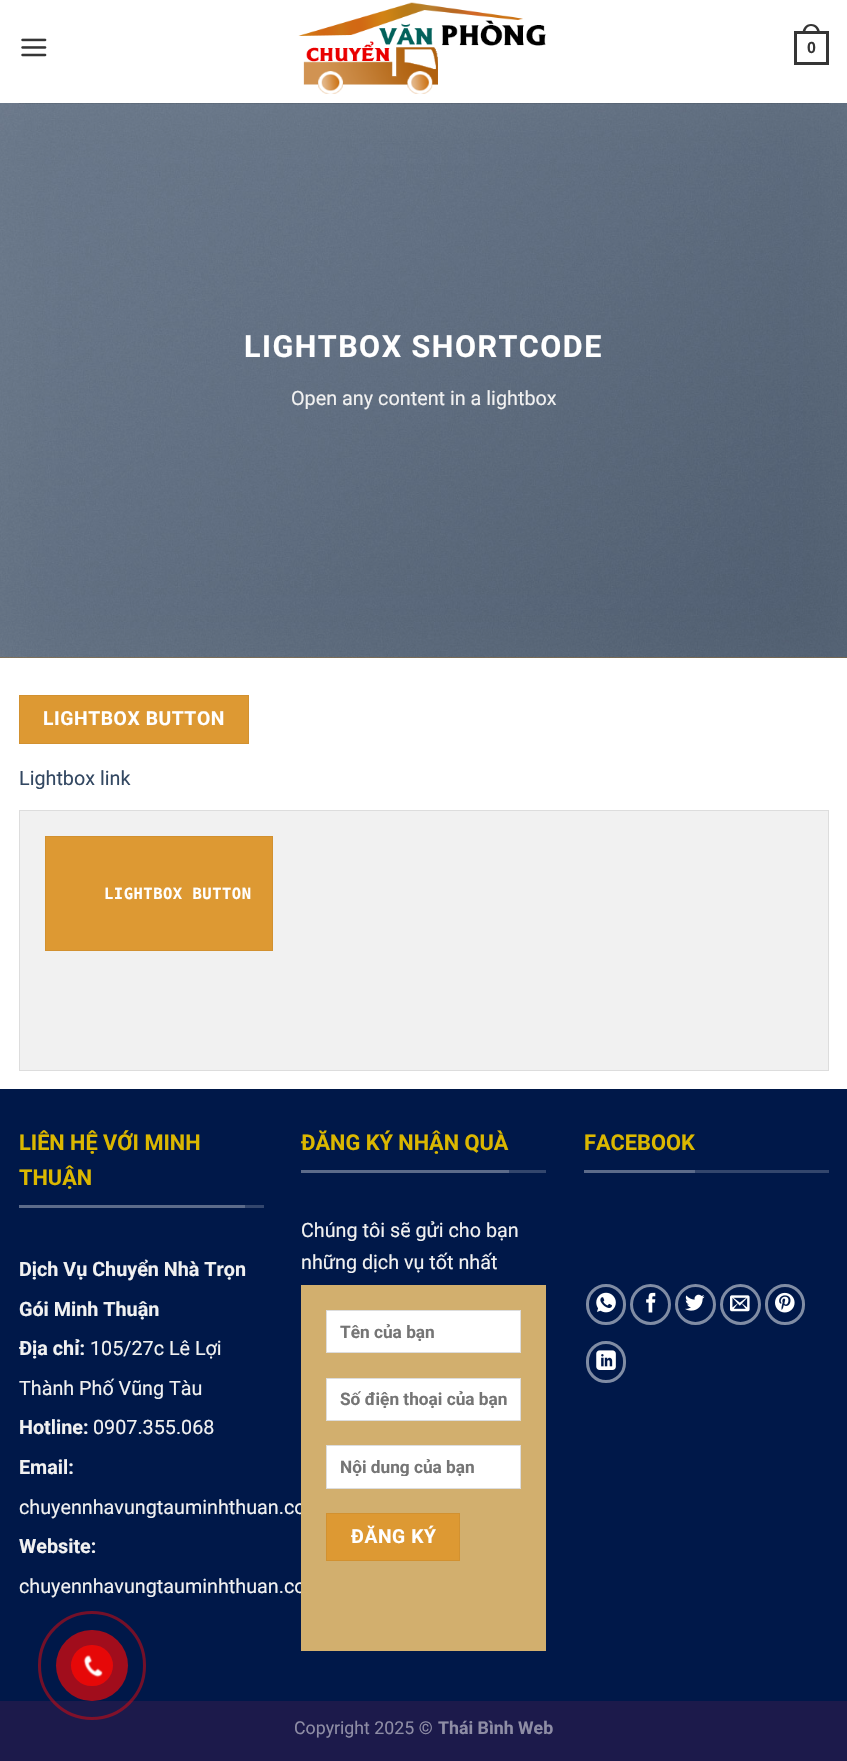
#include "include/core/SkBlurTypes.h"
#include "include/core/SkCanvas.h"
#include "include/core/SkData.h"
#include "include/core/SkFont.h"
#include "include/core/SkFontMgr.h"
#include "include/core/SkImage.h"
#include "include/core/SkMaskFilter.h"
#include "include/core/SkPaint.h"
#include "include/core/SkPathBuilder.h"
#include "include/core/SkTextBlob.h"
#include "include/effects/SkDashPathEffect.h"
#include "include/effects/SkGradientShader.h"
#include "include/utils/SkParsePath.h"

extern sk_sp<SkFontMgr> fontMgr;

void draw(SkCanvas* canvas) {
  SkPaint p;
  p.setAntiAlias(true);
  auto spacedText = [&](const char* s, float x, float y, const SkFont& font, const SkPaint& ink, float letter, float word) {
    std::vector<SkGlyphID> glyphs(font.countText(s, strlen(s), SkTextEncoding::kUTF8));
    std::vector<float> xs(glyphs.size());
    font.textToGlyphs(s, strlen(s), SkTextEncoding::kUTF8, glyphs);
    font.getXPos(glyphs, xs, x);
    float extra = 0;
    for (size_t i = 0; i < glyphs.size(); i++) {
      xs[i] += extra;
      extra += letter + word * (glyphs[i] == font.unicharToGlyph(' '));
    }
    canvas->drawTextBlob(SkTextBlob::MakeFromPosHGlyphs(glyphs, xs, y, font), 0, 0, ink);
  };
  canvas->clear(SK_ColorWHITE);
  canvas->drawImageRect(SkImages::DeferredFromEncodedData(SkData::MakeFromFileName("images/1.png")), SkRect::MakeLTRB(21, 38, 47, 57), SkSamplingOptions());
  canvas->drawImageRect(SkImages::DeferredFromEncodedData(SkData::MakeFromFileName("images/2.png")), SkRect::MakeLTRB(298, 2, 546, 94), SkSamplingOptions());
  p.setStyle(SkPaint::kStroke_Style);
  p.setStrokeWidth(3);
  p.setColor(SkColorSetRGB(53, 53, 53));
  canvas->drawRect(SkRect::MakeLTRB(795.5f, 32.5f, 827.5f, 63.5f), p);
  p.setStyle(SkPaint::kFill_Style);
  canvas->drawPath(SkPathBuilder(SkPathFillType::kEvenOdd).moveTo(811, 24).cubicTo(817, 24, 820, 28.5f, 820, 34).lineTo(802.5f, 34).cubicTo(802.5f, 28.5f, 805.5f, 24, 811, 24).close().moveTo(811, 26).cubicTo(815.5f, 26, 817.5f, 30, 817.5f, 34).lineTo(805, 34).cubicTo(805, 30, 807, 26, 811, 26).close().detach(), p);
  p.setColor(SkColorSetRGB(155, 107, 36));
  canvas->drawRect(SkRect::MakeLTRB(0, 657, 847, 658), p);
  canvas->drawImageRect(SkImages::DeferredFromEncodedData(SkData::MakeFromFileName("images/3.png")), SkRect::MakeLTRB(0, 103, 847, 658), SkSamplingOptions());
  p.setColor(SkColorSetARGB(26, 0, 0, 0));
  canvas->drawRect(SkRect::MakeLTRB(19, 103, 829, 104), p);
  p.setColor(SkColorSetRGB(221, 153, 51));
  canvas->drawRect(SkRect::MakeLTRB(19.5f, 695.5f, 248.5f, 743.5f), p);
  p.setStyle(SkPaint::kStroke_Style);
  p.setStrokeWidth(1);
  p.setColor(SkColorSetRGB(210, 145, 48));
  canvas->drawRect(SkRect::MakeLTRB(19.5f, 695.5f, 248.5f, 743.5f), p);
  p.setStyle(SkPaint::kFill_Style);
  p.setColor(SkColorSetRGB(241, 241, 241));
  canvas->drawRect(SkRect::MakeLTRB(19.5f, 810.5f, 828.5f, 1070.5f), p);
  p.setStyle(SkPaint::kStroke_Style);
  p.setColor(SkColorSetRGB(221, 221, 221));
  canvas->drawRect(SkRect::MakeLTRB(19.5f, 810.5f, 828.5f, 1070.5f), p);
  p.setStyle(SkPaint::kFill_Style);
  p.setColor(SkColorSetRGB(221, 153, 51));
  canvas->drawRect(SkRect::MakeLTRB(45.5f, 836.5f, 272.5f, 950.5f), p);
  p.setStyle(SkPaint::kStroke_Style);
  p.setColor(SkColorSetRGB(210, 145, 48));
  canvas->drawRect(SkRect::MakeLTRB(45.5f, 836.5f, 272.5f, 950.5f), p);
  p.setStyle(SkPaint::kFill_Style);
  p.setColor(SkColorSetRGB(0, 24, 73));
  canvas->drawRect(SkRect::MakeLTRB(0, 1089, 847, 1701), p);
  p.setColor(SkColorSetRGB(51, 70, 109));
  canvas->drawRect(SkRect::MakeLTRB(245, 1205, 264, 1208), p);
  p.setColor(SkColorSetRGB(92, 107, 138));
  canvas->drawRect(SkRect::MakeLTRB(19, 1205, 245, 1208), p);
  p.setColor(SkColorSetRGB(51, 70, 109));
  canvas->drawRect(SkRect::MakeLTRB(509, 1170, 546, 1173), p);
  p.setColor(SkColorSetRGB(92, 107, 138));
  canvas->drawRect(SkRect::MakeLTRB(301, 1170, 509, 1173), p);
  p.setColor(SkColorSetRGB(51, 70, 109));
  canvas->drawRect(SkRect::MakeLTRB(695, 1170, 829, 1173), p);
  p.setColor(SkColorSetRGB(92, 107, 138));
  canvas->drawRect(SkRect::MakeLTRB(584, 1170, 695, 1173), p);
  p.setStyle(SkPaint::kStroke_Style);
  p.setStrokeWidth(3);
  p.setColor(SkColorSetRGB(128, 140, 164));
  canvas->drawRoundRect(SkRect::MakeLTRB(587.5f, 1285.5f, 624.5f, 1323.5f), 18.5f, 18.5f, p);
  canvas->drawImageRect(SkImages::DeferredFromEncodedData(SkData::MakeFromFileName("images/4.png")), SkRect::MakeLTRB(596, 1292, 616, 1313), SkSamplingOptions());
  canvas->drawCircle(650.5f, 1304.5f, 19, p);
  canvas->drawImageRect(SkImages::DeferredFromEncodedData(SkData::MakeFromFileName("images/5.png")), SkRect::MakeLTRB(646, 1292, 656, 1313), SkSamplingOptions());
  canvas->drawCircle(695.5f, 1304.5f, 19, p);
  canvas->drawImageRect(SkImages::DeferredFromEncodedData(SkData::MakeFromFileName("images/6.png")), SkRect::MakeLTRB(685, 1294, 705, 1311), SkSamplingOptions());
  canvas->drawCircle(740.5f, 1304.5f, 19, p);
  canvas->drawImageRect(SkImages::DeferredFromEncodedData(SkData::MakeFromFileName("images/7.png")), SkRect::MakeLTRB(730, 1295, 750, 1312), SkSamplingOptions());
  canvas->drawRoundRect(SkRect::MakeLTRB(766.5f, 1285.5f, 803.5f, 1323.5f), 18.5f, 18.5f, p);
  canvas->drawImageRect(SkImages::DeferredFromEncodedData(SkData::MakeFromFileName("images/8.png")), SkRect::MakeLTRB(775, 1292, 795, 1313), SkSamplingOptions());
  canvas->drawRoundRect(SkRect::MakeLTRB(587.5f, 1342.5f, 624.5f, 1381.5f), 18.5f, 18.5f, p);
  canvas->drawImageRect(SkImages::DeferredFromEncodedData(SkData::MakeFromFileName("images/9.png")), SkRect::MakeLTRB(596, 1350, 616, 1370), SkSamplingOptions());
  p.setStyle(SkPaint::kFill_Style);
  p.setColor(SkColorSetRGB(28, 26, 75));
  canvas->drawRect(SkRect::MakeLTRB(0, 1701, 847, 1761), p);
  p.setStyle(SkPaint::kStroke_Style);
  p.setColor(SkColorSetARGB(128, 230, 8, 8));
  canvas->drawRoundRect(SkRect::MakeLTRB(39.5f, 1612.5f, 144.5f, 1718.5f), 52.5f, 52.5f, p);
  p.setStyle(SkPaint::kFill_Style);
  p.setColor(SkColorSetRGB(161, 13, 28));
  canvas->drawRoundRect(SkRect::MakeLTRB(56, 1630, 128, 1701), 35.5f, 35.5f, p);
  p.setColor(SkColorSetRGB(230, 8, 8));
  canvas->drawRoundRect(SkRect::MakeLTRB(71, 1645, 113, 1686), 20.5f, 20.5f, p);
  canvas->drawImageRect(SkImages::DeferredFromEncodedData(SkData::MakeFromFileName("images/10.png")), SkRect::MakeLTRB(83, 1655, 103, 1678), SkSamplingOptions());
  SkFont font1(fontMgr->matchFamilyStyle("Liberation Sans", SkFontStyle::Bold()), 16);
  font1.setSubpixel(true);
  p.setColor(SkColorSetRGB(53, 53, 53));
  canvas->drawString("0", 807, 53, font1, p);
  SkFont font2(fontMgr->matchFamilyStyle("Roboto", SkFontStyle::Bold()), 30.5f);
  font2.setSubpixel(true);
  p.setColor(SK_ColorWHITE);
  spacedText("LIGHTBOX SHORTCODE", 244, 357, font2, p, 1.5f, 0);
  SkFont font3(fontMgr->matchFamilyStyle("Roboto", SkFontStyle::Normal()), 19.8f);
  font3.setSubpixel(true);
  p.setColor(SkColorSetRGB(241, 241, 241));
  canvas->drawString("Open any content in a lightbox", 291, 405, font3, p);
  SkFont font4(fontMgr->matchFamilyStyle("Roboto", SkFontStyle::Bold()), 19.25f);
  font4.setSubpixel(true);
  p.setColor(SK_ColorWHITE);
  spacedText("LIGHTBOX BUTTON", 43, 725, font4, p, 0.6f, 0);
  SkFont font5(fontMgr->matchFamilyStyle("Roboto", SkFontStyle::Normal()), 19.75f);
  font5.setSubpixel(true);
  p.setColor(SkColorSetRGB(51, 72, 98));
  canvas->drawString("Lightbox link", 19, 785, font5, p);
  SkFont font6(fontMgr->matchFamilyStyle("DejaVu Sans Mono", SkFontStyle::Bold()), 15.5f);
  font6.setSubpixel(true);
  p.setColor(SK_ColorWHITE);
  spacedText("LIGHTBOX BUTTON", 104, 899, font6, p, 0.5f, 0);
  SkFont font7(fontMgr->matchFamilyStyle("Roboto", SkFontStyle::Bold()), 21.75f);
  font7.setSubpixel(true);
  p.setColor(SkColorSetRGB(219, 183, 0));
  canvas->drawString("LIÊN HỆ VỚI MINH", 19, 1150, font7, p);
  canvas->drawString("THUẬN", 19, 1185, font7, p);
  SkFont font8(fontMgr->matchFamilyStyle("Roboto", SkFontStyle::Bold()), 19.75f);
  font8.setSubpixel(true);
  p.setColor(SkColorSetRGB(241, 241, 241));
  canvas->drawString("Dịch Vụ Chuyển Nhà Trọn", 19, 1276, font8, p);
  canvas->drawString("Gói Minh Thuận", 19, 1316, font8, p);
  canvas->drawString("Địa chỉ:", 19, 1355, font8, p);
  canvas->drawString("105/27c Lê Lợi", 90, 1355, font5, p);
  canvas->drawString("Thành Phố Vũng Tàu", 19, 1395, font5, p);
  canvas->drawString("Hotline:", 19, 1434, font8, p);
  canvas->drawString("0907.355.068", 93, 1434, font5, p);
  canvas->drawString("Email:", 19, 1474, font8, p);
  canvas->drawString("chuyennhavungtauminhthuan.co", 19, 1514, font5, p);
  canvas->drawString("Website:", 19, 1553, font8, p);
  canvas->drawString("chuyennhavungtauminhthuan.co", 19, 1593, font5, p);
  p.setColor(SkColorSetRGB(219, 183, 0));
  canvas->drawString("ĐĂNG KÝ NHẬN QUÀ", 301, 1150, font7, p);
  p.setColor(SkColorSetRGB(241, 241, 241));
  canvas->drawString("Chúng tôi sẽ gửi cho bạn", 301, 1237, font5, p);
  canvas->drawString("những dịch vụ tốt nhất", 301, 1269, font5, p);
  p.setColor(SkColorSetRGB(210, 175, 110));
  canvas->drawRect(SkRect::MakeLTRB(301, 1285, 546, 1651), p);
  p.setColor(SK_ColorWHITE);
  canvas->drawRect(SkRect::MakeLTRB(326.5f, 1310.5f, 520.5f, 1352.5f), p);
  p.setStyle(SkPaint::kStroke_Style);
  p.setStrokeWidth(1);
  p.setColor(SkColorSetRGB(221, 221, 221));
  canvas->drawRect(SkRect::MakeLTRB(326.5f, 1310.5f, 520.5f, 1352.5f), p);
  SkFont font9(fontMgr->matchFamilyStyle("Roboto", SkFontStyle::Bold()), 17.25f);
  font9.setSubpixel(true);
  p.setStyle(SkPaint::kFill_Style);
  p.setColor(SkColorSetRGB(117, 117, 117));
  canvas->drawString("Tên của bạn", 340, 1338, font9, p);
  p.setColor(SK_ColorWHITE);
  canvas->drawRect(SkRect::MakeLTRB(326.5f, 1378.5f, 520.5f, 1420.5f), p);
  p.setStyle(SkPaint::kStroke_Style);
  p.setColor(SkColorSetRGB(221, 221, 221));
  canvas->drawRect(SkRect::MakeLTRB(326.5f, 1378.5f, 520.5f, 1420.5f), p);
  p.setStyle(SkPaint::kFill_Style);
  p.setColor(SkColorSetRGB(117, 117, 117));
  canvas->drawString("Số điện thoại của bạn", 340, 1405, font9, p);
  p.setColor(SK_ColorWHITE);
  canvas->drawRect(SkRect::MakeLTRB(326.5f, 1445.5f, 520.5f, 1488.5f), p);
  p.setStyle(SkPaint::kStroke_Style);
  p.setColor(SkColorSetRGB(221, 221, 221));
  canvas->drawRect(SkRect::MakeLTRB(326.5f, 1445.5f, 520.5f, 1488.5f), p);
  canvas->save();
  canvas->clipRect(SkRect::MakeLTRB(340, 1456, 508, 1476));
  p.setStyle(SkPaint::kFill_Style);
  p.setColor(SkColorSetRGB(117, 117, 117));
  canvas->drawString("Nội dung của bạn", 340, 1473, font9, p);
  canvas->restore();
  p.setColor(SkColorSetRGB(221, 153, 51));
  canvas->drawRect(SkRect::MakeLTRB(326.5f, 1513.5f, 459.5f, 1560.5f), p);
  p.setStyle(SkPaint::kStroke_Style);
  p.setColor(SkColorSetRGB(210, 145, 48));
  canvas->drawRect(SkRect::MakeLTRB(326.5f, 1513.5f, 459.5f, 1560.5f), p);
  p.setStyle(SkPaint::kFill_Style);
  p.setColor(SK_ColorWHITE);
  spacedText("ĐĂNG KÝ", 351, 1543, font4, p, 0.6f, 0);
  p.setColor(SkColorSetRGB(219, 183, 0));
  canvas->drawString("FACEBOOK", 584, 1150, font7, p);
  SkFont font10(fontMgr->matchFamilyStyle("Roboto", SkFontStyle::Normal()), 17.75f);
  font10.setSubpixel(true);
  p.setColor(SkColorSetRGB(142, 141, 165));
  canvas->drawString("Copyright 2025 ©", 294, 1734, font10, p);
  SkFont font11(fontMgr->matchFamilyStyle("Roboto", SkFontStyle::Bold()), 17.75f);
  font11.setSubpixel(true);
  canvas->drawString("Thái Bình Web", 438, 1734, font11, p);
}
